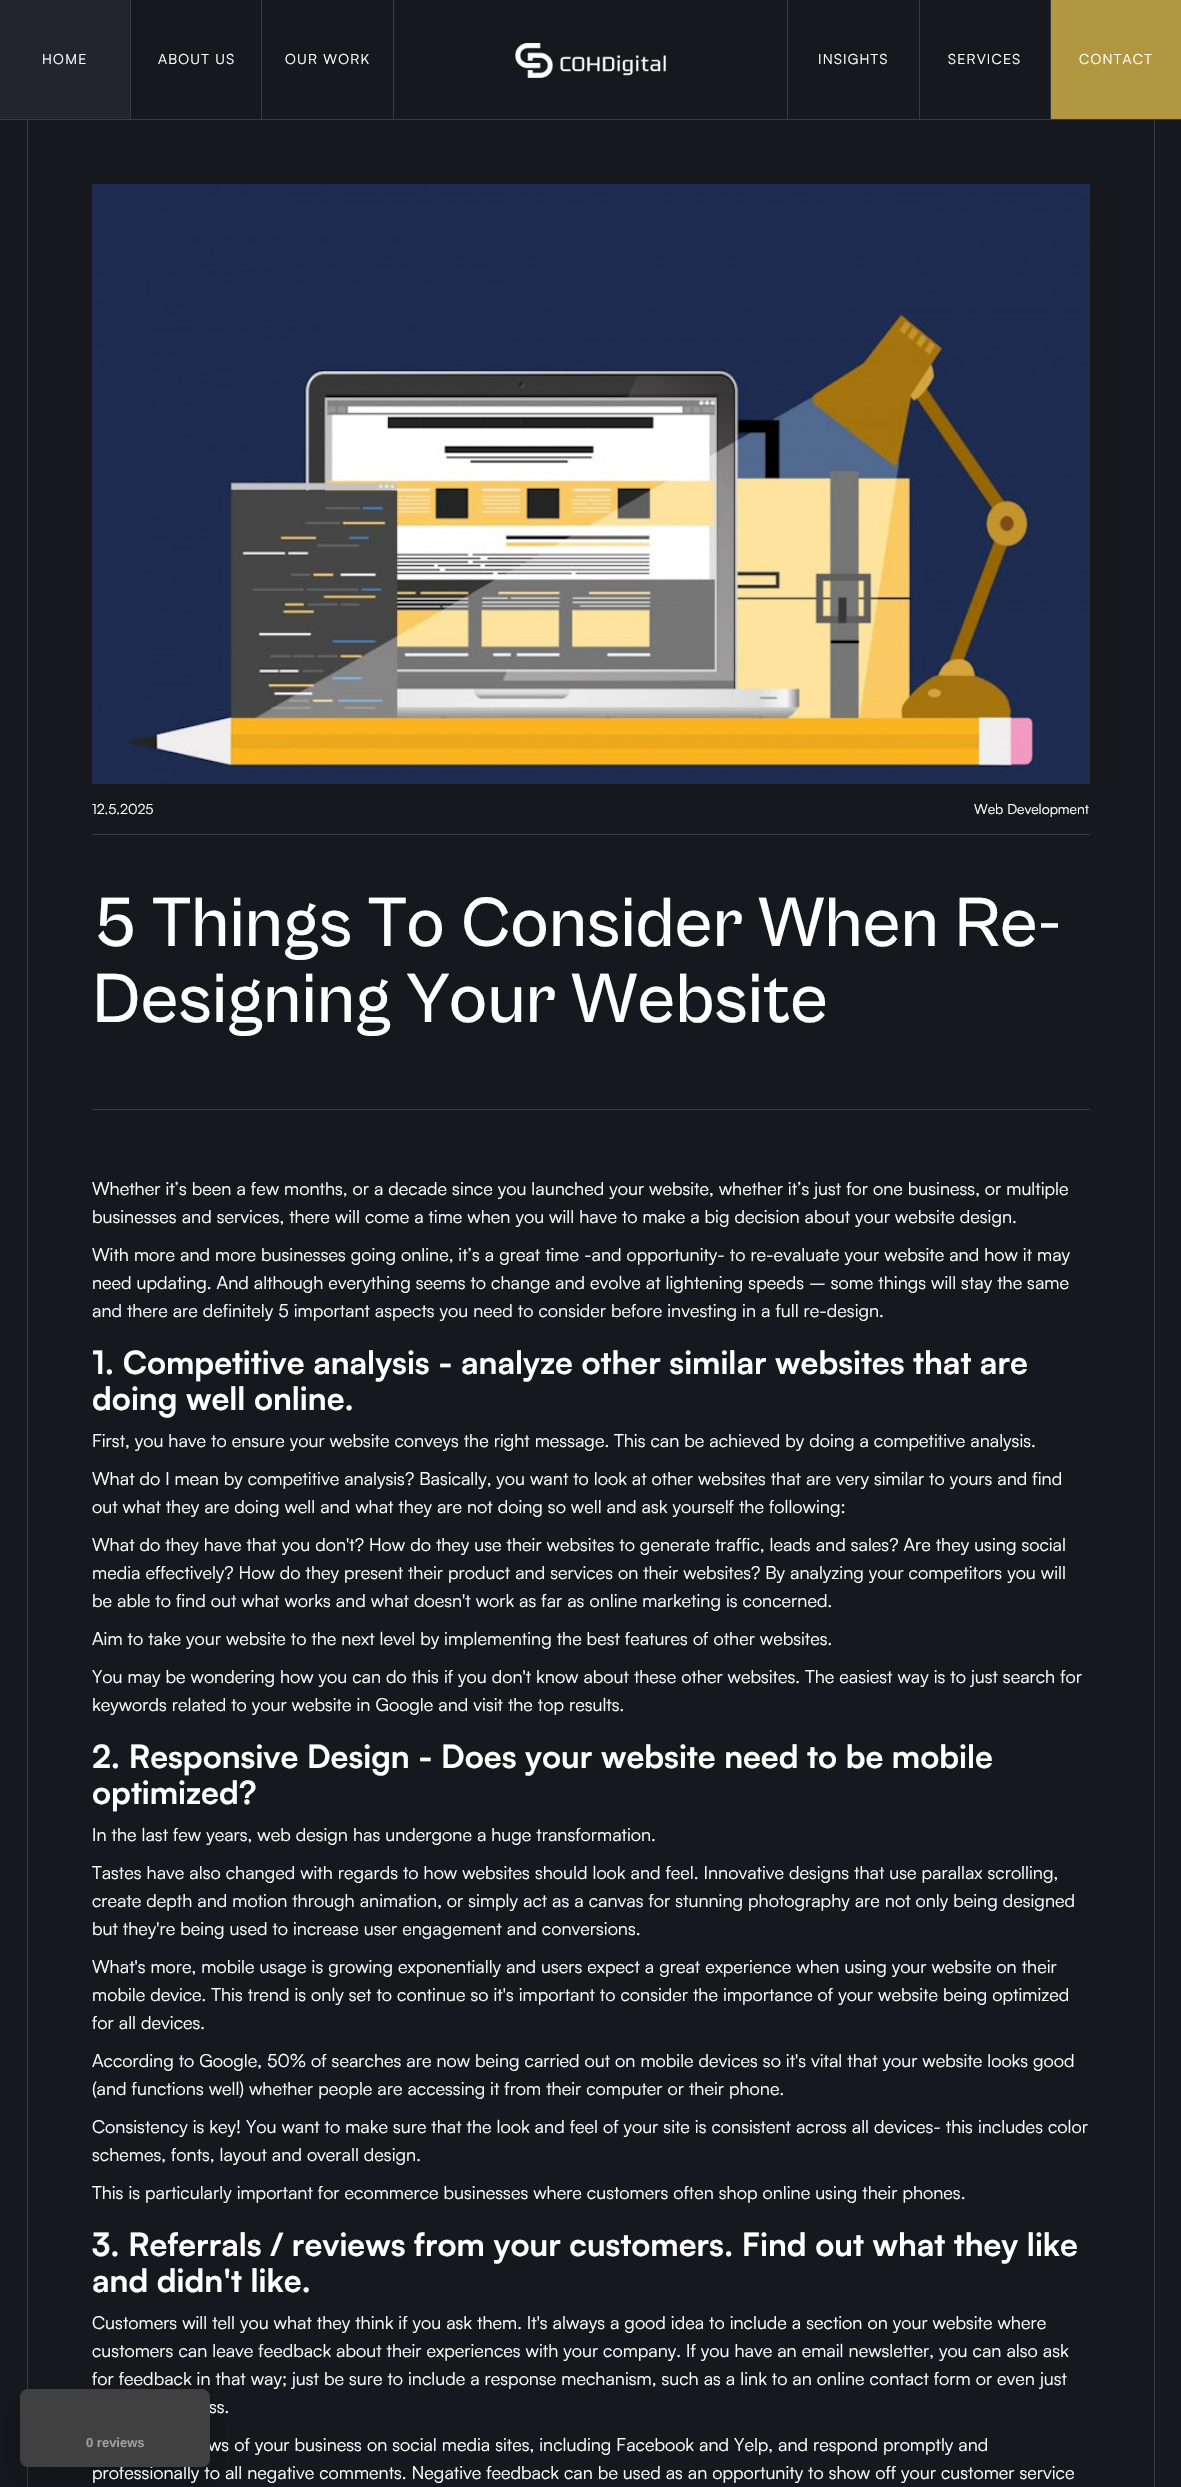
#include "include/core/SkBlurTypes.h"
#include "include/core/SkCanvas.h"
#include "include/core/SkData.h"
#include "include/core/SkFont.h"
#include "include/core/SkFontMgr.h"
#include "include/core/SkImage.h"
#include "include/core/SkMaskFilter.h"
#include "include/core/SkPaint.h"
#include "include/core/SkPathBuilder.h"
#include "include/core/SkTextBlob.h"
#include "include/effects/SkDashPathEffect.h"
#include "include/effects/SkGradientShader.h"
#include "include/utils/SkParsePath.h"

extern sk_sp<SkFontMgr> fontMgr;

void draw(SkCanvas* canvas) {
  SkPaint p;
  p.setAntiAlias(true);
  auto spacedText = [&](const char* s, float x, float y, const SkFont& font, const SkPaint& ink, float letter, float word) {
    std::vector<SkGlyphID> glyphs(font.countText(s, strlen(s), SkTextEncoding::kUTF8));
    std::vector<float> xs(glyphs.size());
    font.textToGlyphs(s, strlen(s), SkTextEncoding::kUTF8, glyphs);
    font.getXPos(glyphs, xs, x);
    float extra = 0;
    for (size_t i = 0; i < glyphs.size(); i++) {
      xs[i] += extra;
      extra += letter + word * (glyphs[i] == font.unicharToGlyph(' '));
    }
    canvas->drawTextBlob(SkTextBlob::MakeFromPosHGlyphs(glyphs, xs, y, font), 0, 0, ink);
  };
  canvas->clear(SkColorSetRGB(23, 24, 29));
  p.setColor(SkColorSetRGB(56, 58, 65));
  canvas->drawRect(SkRect::MakeLTRB(0, 119, 1181, 120), p);
  p.setColor(SkColorSetRGB(35, 37, 44));
  canvas->drawRect(SkRect::MakeLTRB(0, 0, 130, 119), p);
  p.setColor(SkColorSetRGB(56, 58, 65));
  canvas->drawRect(SkRect::MakeLTRB(130, 0, 131, 119), p);
  canvas->drawRect(SkRect::MakeLTRB(261, 0, 262, 119), p);
  canvas->drawRect(SkRect::MakeLTRB(393, 0, 394, 119), p);
  canvas->drawImageRect(SkImages::DeferredFromEncodedData(SkData::MakeFromFileName("images/1.png")), SkRect::MakeLTRB(515, 43, 667, 78), SkSamplingOptions());
  canvas->drawRect(SkRect::MakeLTRB(787, 0, 788, 119), p);
  canvas->drawRect(SkRect::MakeLTRB(919, 0, 920, 119), p);
  p.setColor(SkColorSetRGB(177, 152, 64));
  canvas->drawRect(SkRect::MakeLTRB(1051, 0, 1181, 119), p);
  p.setColor(SkColorSetRGB(56, 58, 65));
  canvas->drawRect(SkRect::MakeLTRB(1050, 0, 1051, 119), p);
  canvas->drawRect(SkRect::MakeLTRB(1154, 120, 1155, 2487), p);
  canvas->drawRect(SkRect::MakeLTRB(27, 120, 28, 2487), p);
  canvas->drawImageRect(SkImages::DeferredFromEncodedData(SkData::MakeFromFileName("images/2.png")), SkRect::MakeLTRB(92, 184, 1090, 784), SkSamplingOptions());
  canvas->drawRect(SkRect::MakeLTRB(92, 834, 1090, 835), p);
  canvas->drawRect(SkRect::MakeLTRB(92, 1109, 1090, 1110), p);
  p.setColor(SkColorSetARGB(38, 0, 0, 0));
  p.setMaskFilter(SkMaskFilter::MakeBlur(kNormal_SkBlurStyle, 15));
  canvas->drawRoundRect(SkRect::MakeLTRB(20, 2399, 210, 2477), 8, 8, p);
  p.setMaskFilter(nullptr);
  p.setColor(SkColorSetARGB(26, 0, 0, 0));
  p.setMaskFilter(SkMaskFilter::MakeBlur(kNormal_SkBlurStyle, 20));
  canvas->drawRoundRect(SkRect::MakeLTRB(20, 2404, 210, 2482), 8, 8, p);
  p.setMaskFilter(nullptr);
  SkFont font1(fontMgr->matchFamilyStyle("Satoshi", SkFontStyle::Normal()), 14);
  font1.setSubpixel(true);
  p.setColor(SK_ColorWHITE);
  spacedText("HOME", 42, 64, font1, p, 1.25f, 0);
  spacedText("ABOUT US", 158, 64, font1, p, 1.25f, 0);
  spacedText("OUR WORK", 285, 64, font1, p, 1.25f, 0);
  spacedText("INSIGHTS", 818, 64, font1, p, 1.25f, 0);
  spacedText("SERVICES", 948, 64, font1, p, 1.25f, 0);
  spacedText("CONTACT", 1079, 64, font1, p, 1.25f, 0);
  canvas->drawString("12.5.2025", 92, 814, font1, p);
  canvas->drawString("Web Development", 974, 814, font1, p);
  SkFont font2(fontMgr->matchFamilyStyle("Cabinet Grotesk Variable", SkFontStyle(500, SkFontStyle::kNormal_Width, SkFontStyle::kUpright_Slant)), 72);
  font2.setSubpixel(true);
  spacedText("5 Things To Consider When Re-", 92, 946, font2, p, -0.35f, 0);
  spacedText("Designing Your Website", 92, 1022, font2, p, -0.35f, 0);
  SkFont font3(fontMgr->matchFamilyStyle("Satoshi", SkFontStyle::Normal()), 18);
  font3.setSubpixel(true);
  canvas->drawString("Whether it’s been a few months, or a decade since you launched your website, whether it’s just for one business, or multiple", 92, 1195, font3, p);
  canvas->drawString("businesses and services, there will come a time when you will have to make a big decision about your website design.", 92, 1223, font3, p);
  canvas->drawString("With more and more businesses going online, it’s a great time -and opportunity- to re-evaluate your website and how it may", 92, 1261, font3, p);
  canvas->drawString("need updating. And although everything seems to change and evolve at lightening speeds – some things will stay the same", 92, 1289, font3, p);
  canvas->drawString("and there are definitely 5 important aspects you need to consider before investing in a full re-design.", 92, 1317, font3, p);
  SkFont font4(fontMgr->matchFamilyStyle("Satoshi", SkFontStyle::Bold()), 32);
  font4.setSubpixel(true);
  canvas->drawString("1. Competitive analysis - analyze other similar websites that are", 92, 1374, font4, p);
  canvas->drawString("doing well online.", 92, 1410, font4, p);
  canvas->drawString("First, you have to ensure your website conveys the right message. This can be achieved by doing a competitive analysis.", 92, 1447, font3, p);
  canvas->drawString("What do I mean by competitive analysis? Basically, you want to look at other websites that are very similar to yours and find", 92, 1485, font3, p);
  canvas->drawString("out what they are doing well and what they are not doing so well and ask yourself the following:", 92, 1513, font3, p);
  canvas->drawString("What do they have that you don't? How do they use their websites to generate traffic, leads and sales? Are they using social", 92, 1551, font3, p);
  canvas->drawString("media effectively? How do they present their product and services on their websites? By analyzing your competitors you will", 92, 1579, font3, p);
  canvas->drawString("be able to find out what works and what doesn't work as far as online marketing is concerned.", 92, 1607, font3, p);
  canvas->drawString("Aim to take your website to the next level by implementing the best features of other websites.", 92, 1645, font3, p);
  canvas->drawString("You may be wondering how you can do this if you don't know about these other websites. The easiest way is to just search for", 92, 1683, font3, p);
  canvas->drawString("keywords related to your website in Google and visit the top results.", 92, 1711, font3, p);
  canvas->drawString("2. Responsive Design - Does your website need to be mobile", 92, 1768, font4, p);
  canvas->drawString("optimized?", 92, 1804, font4, p);
  canvas->drawString("In the last few years, web design has undergone a huge transformation.", 92, 1841, font3, p);
  canvas->drawString("Tastes have also changed with regards to how websites should look and feel. Innovative designs that use parallax scrolling,", 92, 1879, font3, p);
  canvas->drawString("create depth and motion through animation, or simply act as a canvas for stunning photography are not only being designed", 92, 1907, font3, p);
  canvas->drawString("but they're being used to increase user engagement and conversions.", 92, 1935, font3, p);
  canvas->drawString("What's more, mobile usage is growing exponentially and users expect a great experience when using your website on their", 92, 1973, font3, p);
  canvas->drawString("mobile device. This trend is only set to continue so it's important to consider the importance of your website being optimized", 92, 2001, font3, p);
  canvas->drawString("for all devices.", 92, 2029, font3, p);
  canvas->drawString("According to Google, 50% of searches are now being carried out on mobile devices so it's vital that your website looks good", 92, 2067, font3, p);
  canvas->drawString("(and functions well) whether people are accessing it from their computer or their phone.", 92, 2095, font3, p);
  canvas->drawString("Consistency is key! You want to make sure that the look and feel of your site is consistent across all devices- this includes color", 92, 2133, font3, p);
  canvas->drawString("schemes, fonts, layout and overall design.", 92, 2161, font3, p);
  canvas->drawString("This is particularly important for ecommerce businesses where customers often shop online using their phones.", 92, 2199, font3, p);
  canvas->drawString("3. Referrals / reviews from your customers. Find out what they like", 92, 2256, font4, p);
  canvas->drawString("and didn't like.", 92, 2292, font4, p);
  canvas->drawString("Customers will tell you what they think if you ask them. It's always a good idea to include a section on your website where", 92, 2329, font3, p);
  canvas->drawString("customers can leave feedback about their experiences with your company. If you have an email newsletter, you can also ask", 92, 2357, font3, p);
  canvas->drawString("for feedback in that way; just be sure to include a response mechanism, such as a link to an online contact form or even just", 92, 2385, font3, p);
  canvas->drawString("ss.", 209, 2413, font3, p);
  canvas->drawString("ws of your business on social media sites, including Facebook and Yelp, and respond promptly and", 208, 2451, font3, p);
  canvas->drawString("professionally to all negative comments. Negative feedback can be used as an opportunity to show off your customer service", 92, 2479, font3, p);
  p.setColor(SkColorSetRGB(64, 64, 64));
  canvas->drawRoundRect(SkRect::MakeLTRB(20, 2389, 210, 2467), 8, 8, p);
  SkFont font5(fontMgr->matchFamilyStyle("Liberation Sans", SkFontStyle::Bold()), 13);
  font5.setSubpixel(true);
  p.setColor(SkColorSetRGB(160, 160, 160));
  canvas->drawString("0 reviews", 86, 2447, font5, p);
}
